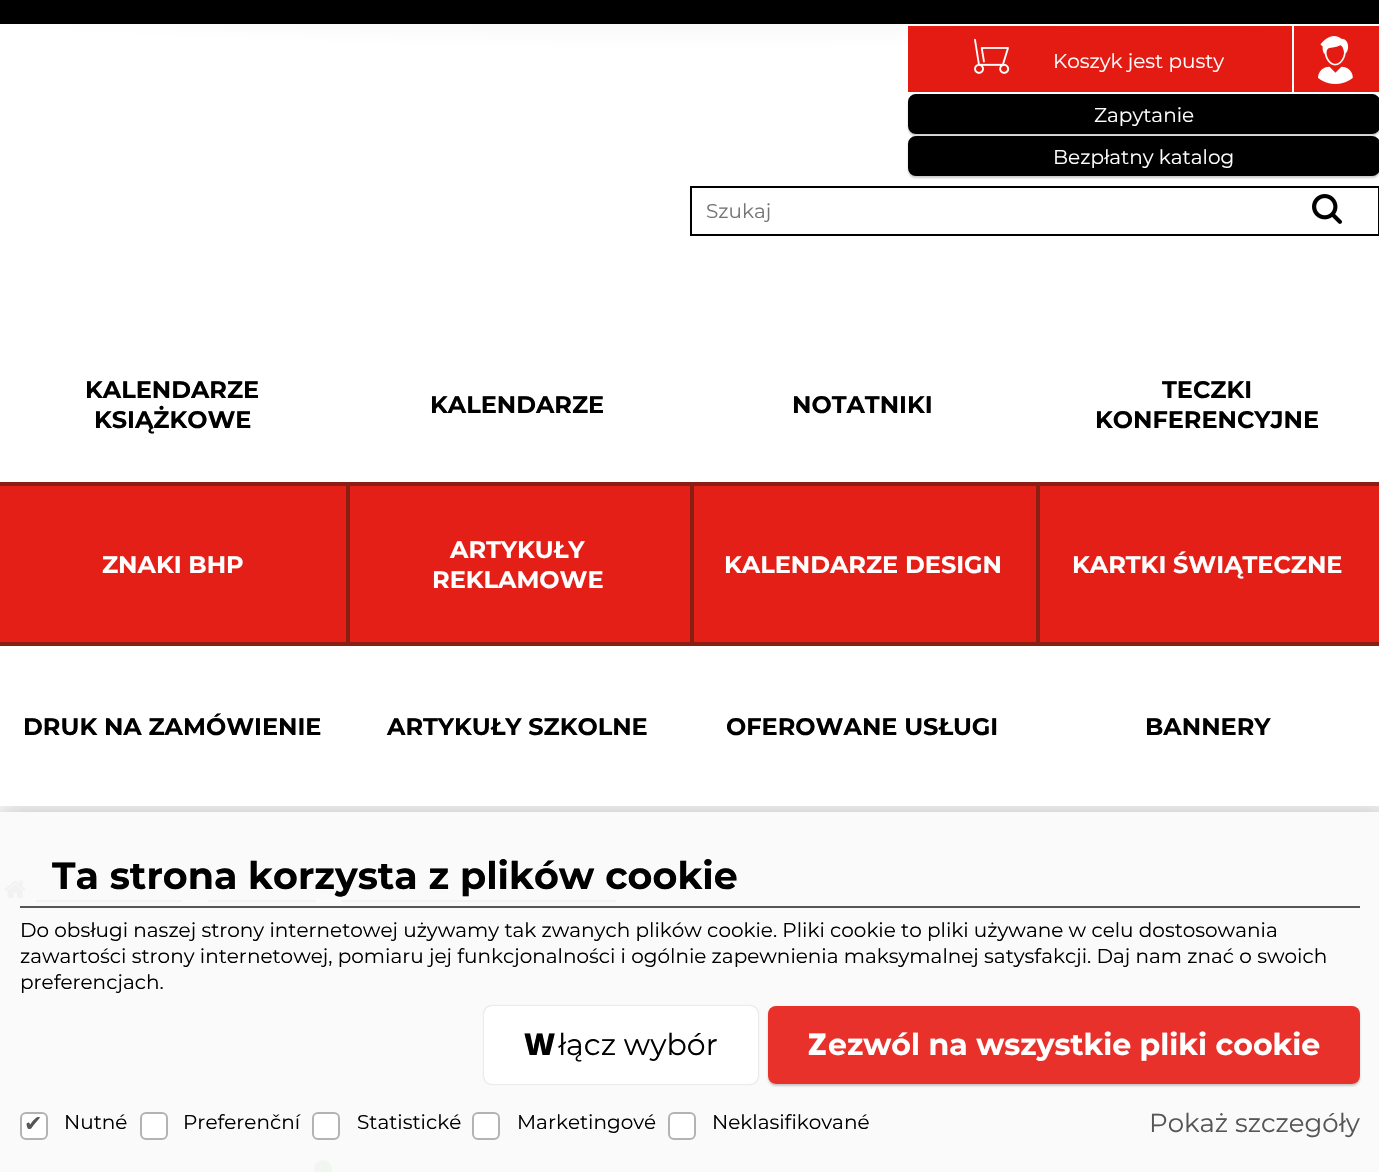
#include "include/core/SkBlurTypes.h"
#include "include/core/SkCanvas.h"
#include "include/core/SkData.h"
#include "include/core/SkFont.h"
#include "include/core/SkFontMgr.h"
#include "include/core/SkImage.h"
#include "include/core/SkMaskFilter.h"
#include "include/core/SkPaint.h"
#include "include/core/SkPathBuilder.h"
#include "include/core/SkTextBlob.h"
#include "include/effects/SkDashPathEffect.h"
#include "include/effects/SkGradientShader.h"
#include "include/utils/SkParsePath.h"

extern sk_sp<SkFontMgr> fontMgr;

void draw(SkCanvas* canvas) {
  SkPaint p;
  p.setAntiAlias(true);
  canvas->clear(SkColorSetRGB(250, 250, 250));
  {
    const SkColor colors[] = {SK_ColorBLACK, SkColorSetRGB(187, 187, 187), SK_ColorWHITE};
    const float stops[] = {0, 0.81f, 0.83f};
    p.setShader(SkGradientShader::MakeRadial({690, -11086}, 13416, colors, stops, 3, SkTileMode::kClamp));
    p.setAlpha(255);
  }
  canvas->drawRect(SkRect::MakeLTRB(0, 806, 1379, 812), p);
  canvas->drawImageRect(SkImages::DeferredFromEncodedData(SkData::MakeFromFileName("images/4.png")), SkRect::MakeLTRB(4, 880, 26, 898), SkSamplingOptions());
  p.setShader(nullptr);
  p.setColor(SkColorSetRGB(242, 242, 242));
  canvas->drawRect(SkRect::MakeLTRB(36, 900, 182, 902), p);
  canvas->drawRect(SkRect::MakeLTRB(208, 900, 316, 902), p);
  canvas->drawRect(SkRect::MakeLTRB(342, 900, 616, 902), p);
  p.setColor(SkColorSetRGB(242, 246, 240));
  canvas->drawCircle(323, 1169, 9, p);
  canvas->save();
  canvas->clipRect(SkRect::MakeLTRB(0, 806, 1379, 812));
  p.setColor(SkColorSetRGB(196, 196, 196));
  p.setMaskFilter(SkMaskFilter::MakeBlur(kNormal_SkBlurStyle, 14));
  canvas->drawRect(SkRect::MakeLTRB(-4, 808, 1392, 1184), p);
  p.setMaskFilter(nullptr);
  canvas->restore();
  {
    const SkColor colors[] = {SK_ColorBLACK, SkColorSetRGB(187, 187, 187), SK_ColorWHITE};
    const float stops[] = {0, 0.81f, 0.83f};
    p.setShader(SkGradientShader::MakeRadial({690, -11086}, 13416, colors, stops, 3, SkTileMode::kClamp));
    p.setAlpha(255);
  }
  canvas->drawRect(SkRect::MakeLTRB(0, 24, 1379, 806), p);
  p.setShader(nullptr);
  p.setColor(SK_ColorBLACK);
  canvas->drawRect(SkRect::MakeLTRB(0, 0, 1379, 24), p);
  p.setColor(SkColorSetRGB(228, 27, 19));
  canvas->drawRect(SkRect::MakeLTRB(908, 26, 1292, 92), p);
  canvas->drawImageRect(SkImages::DeferredFromEncodedData(SkData::MakeFromFileName("images/1.png")), SkRect::MakeLTRB(974, 38, 1010, 74), SkSamplingOptions());
  canvas->drawRect(SkRect::MakeLTRB(1294, 26, 1379, 92), p);
  canvas->drawImageRect(SkImages::DeferredFromEncodedData(SkData::MakeFromFileName("images/2.png")), SkRect::MakeLTRB(1318, 36, 1353, 84), SkSamplingOptions());
  p.setColor(SkColorSetARGB(51, 0, 0, 0));
  p.setMaskFilter(SkMaskFilter::MakeBlur(kNormal_SkBlurStyle, 1));
  canvas->drawRoundRect(SkRect::MakeLTRB(908, 96, 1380, 136), 8, 8, p);
  p.setMaskFilter(nullptr);
  p.setColor(SK_ColorBLACK);
  canvas->drawRoundRect(SkRect::MakeLTRB(908, 94, 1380, 134), 8, 8, p);
  p.setColor(SkColorSetARGB(51, 0, 0, 0));
  p.setMaskFilter(SkMaskFilter::MakeBlur(kNormal_SkBlurStyle, 1));
  canvas->drawRoundRect(SkRect::MakeLTRB(908, 138, 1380, 178), 8, 8, p);
  p.setMaskFilter(nullptr);
  p.setColor(SK_ColorBLACK);
  canvas->drawRoundRect(SkRect::MakeLTRB(908, 136, 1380, 176), 8, 8, p);
  p.setStyle(SkPaint::kStroke_Style);
  p.setStrokeWidth(2);
  canvas->drawRect(SkRect::MakeLTRB(691, 187, 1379, 235), p);
  canvas->drawImageRect(SkImages::DeferredFromEncodedData(SkData::MakeFromFileName("images/3.png")), SkRect::MakeLTRB(1312, 194, 1342, 224), SkSamplingOptions());
  p.setStyle(SkPaint::kFill_Style);
  p.setColor(SkColorSetRGB(138, 30, 18));
  canvas->drawRect(SkRect::MakeLTRB(0, 482, 1379, 486), p);
  p.setColor(SkColorSetRGB(228, 31, 23));
  canvas->drawRect(SkRect::MakeLTRB(0, 486, 346, 642), p);
  p.setColor(SkColorSetRGB(138, 30, 18));
  canvas->drawRect(SkRect::MakeLTRB(0, 642, 1379, 646), p);
  p.setColor(SkColorSetRGB(228, 31, 23));
  canvas->drawRect(SkRect::MakeLTRB(350, 486, 690, 642), p);
  p.setColor(SkColorSetRGB(138, 30, 18));
  canvas->drawRect(SkRect::MakeLTRB(346, 486, 350, 642), p);
  p.setColor(SkColorSetRGB(228, 31, 23));
  canvas->drawRect(SkRect::MakeLTRB(694, 486, 1036, 642), p);
  p.setColor(SkColorSetRGB(138, 30, 18));
  canvas->drawRect(SkRect::MakeLTRB(690, 486, 694, 642), p);
  p.setColor(SkColorSetRGB(228, 31, 23));
  canvas->drawRect(SkRect::MakeLTRB(1040, 486, 1379, 642), p);
  p.setColor(SkColorSetRGB(138, 30, 18));
  canvas->drawRect(SkRect::MakeLTRB(1036, 486, 1040, 642), p);
  p.setColor(SkColorSetRGB(86, 86, 86));
  canvas->drawRect(SkRect::MakeLTRB(20, 906, 1360, 908), p);
  p.setColor(SkColorSetARGB(204, 178, 178, 178));
  p.setMaskFilter(SkMaskFilter::MakeBlur(kNormal_SkBlurStyle, 1));
  canvas->drawRoundRect(SkRect::MakeLTRB(484, 1006, 758, 1084), 8, 8, p);
  p.setMaskFilter(nullptr);
  p.setColor(SK_ColorWHITE);
  canvas->drawRoundRect(SkRect::MakeLTRB(484, 1006, 758, 1084), 8, 8, p);
  canvas->save();
  canvas->clipPath(SkPathBuilder(SkPathFillType::kEvenOdd).moveTo(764, 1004).lineTo(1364, 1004).lineTo(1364, 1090).lineTo(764, 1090).close().moveTo(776, 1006).lineTo(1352, 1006).cubicTo(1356.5f, 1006, 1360, 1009.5f, 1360, 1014).lineTo(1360, 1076).cubicTo(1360, 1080.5f, 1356.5f, 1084, 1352, 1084).lineTo(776, 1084).cubicTo(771.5f, 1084, 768, 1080.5f, 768, 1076).lineTo(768, 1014).cubicTo(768, 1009.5f, 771.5f, 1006, 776, 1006).close().detach(), true);
  p.setColor(SkColorSetARGB(51, 0, 0, 0));
  p.setMaskFilter(SkMaskFilter::MakeBlur(kNormal_SkBlurStyle, 1));
  canvas->drawRoundRect(SkRect::MakeLTRB(768, 1008, 1360, 1086), 8, 8, p);
  p.setMaskFilter(nullptr);
  canvas->restore();
  p.setColor(SkColorSetARGB(230, 228, 27, 19));
  canvas->drawRoundRect(SkRect::MakeLTRB(768, 1006, 1360, 1084), 8, 8, p);
  p.setColor(SK_ColorWHITE);
  canvas->drawRoundRect(SkRect::MakeLTRB(21, 1113, 47, 1139), 5, 5, p);
  p.setStyle(SkPaint::kStroke_Style);
  p.setColor(SkColorSetRGB(179, 179, 179));
  canvas->drawRoundRect(SkRect::MakeLTRB(21, 1113, 47, 1139), 5, 5, p);
  p.setStyle(SkPaint::kFill_Style);
  p.setColor(SK_ColorWHITE);
  canvas->drawRoundRect(SkRect::MakeLTRB(141, 1113, 167, 1139), 5, 5, p);
  p.setStyle(SkPaint::kStroke_Style);
  p.setColor(SkColorSetRGB(179, 179, 179));
  canvas->drawRoundRect(SkRect::MakeLTRB(141, 1113, 167, 1139), 5, 5, p);
  p.setStyle(SkPaint::kFill_Style);
  p.setColor(SK_ColorWHITE);
  canvas->drawRoundRect(SkRect::MakeLTRB(313, 1113, 339, 1139), 5, 5, p);
  p.setStyle(SkPaint::kStroke_Style);
  p.setColor(SkColorSetRGB(179, 179, 179));
  canvas->drawRoundRect(SkRect::MakeLTRB(313, 1113, 339, 1139), 5, 5, p);
  p.setStyle(SkPaint::kFill_Style);
  p.setColor(SK_ColorWHITE);
  canvas->drawRoundRect(SkRect::MakeLTRB(473, 1113, 499, 1139), 5, 5, p);
  p.setStyle(SkPaint::kStroke_Style);
  p.setColor(SkColorSetRGB(179, 179, 179));
  canvas->drawRoundRect(SkRect::MakeLTRB(473, 1113, 499, 1139), 5, 5, p);
  p.setStyle(SkPaint::kFill_Style);
  p.setColor(SK_ColorWHITE);
  canvas->drawRoundRect(SkRect::MakeLTRB(669, 1113, 695, 1139), 5, 5, p);
  p.setStyle(SkPaint::kStroke_Style);
  p.setColor(SkColorSetRGB(179, 179, 179));
  canvas->drawRoundRect(SkRect::MakeLTRB(669, 1113, 695, 1139), 5, 5, p);
  SkFont font1(fontMgr->matchFamilyStyle("Montserrat", SkFontStyle::Normal()), 20);
  font1.setSubpixel(true);
  p.setStyle(SkPaint::kFill_Style);
  p.setColor(SK_ColorWHITE);
  canvas->drawString("Koszyk jest pusty", 1053, 68, font1, p);
  canvas->drawString("Zapytanie", 1094, 122, font1, p);
  canvas->drawString("Bezpłatny katalog", 1053, 164, font1, p);
  p.setColor(SkColorSetRGB(117, 117, 117));
  canvas->drawString("Szukaj", 706, 218, font1, p);
  SkFont font2(fontMgr->matchFamilyStyle("Montserrat", SkFontStyle::Bold()), 24);
  font2.setSubpixel(true);
  p.setColor(SK_ColorBLACK);
  canvas->drawString("KALENDARZE", 85, 398, font2, p);
  canvas->drawString("KSIĄŻKOWE", 94, 428, font2, p);
  canvas->drawString("KALENDARZE", 430, 413, font2, p);
  canvas->drawString("NOTATNIKI", 792, 413, font2, p);
  canvas->drawString("TECZKI", 1162, 398, font2, p);
  canvas->drawString("KONFERENCYJNE", 1095, 428, font2, p);
  p.setColor(SK_ColorWHITE);
  canvas->drawString("ZNAKI BHP", 102, 573, font2, p);
  canvas->drawString("ARTYKUŁY", 450, 558, font2, p);
  canvas->drawString("REKLAMOWE", 432, 588, font2, p);
  canvas->drawString("KALENDARZE DESIGN", 724, 573, font2, p);
  canvas->drawString("KARTKI ŚWIĄTECZNE", 1072, 573, font2, p);
  p.setColor(SK_ColorBLACK);
  canvas->drawString("DRUK NA ZAMÓWIENIE", 23, 735, font2, p);
  canvas->drawString("ARTYKUŁY SZKOLNE", 387, 735, font2, p);
  canvas->drawString("OFEROWANE USŁUGI", 726, 735, font2, p);
  canvas->drawString("BANNERY", 1145, 735, font2, p);
  SkFont font3(fontMgr->matchFamilyStyle("Montserrat", SkFontStyle::Bold()), 38);
  font3.setSubpixel(true);
  canvas->drawString("Ta strona korzysta z plików cookie", 52, 889, font3, p);
  canvas->drawString("Do obsługi naszej strony internetowej używamy tak zwanych plików cookie. Pliki cookie to pliki używane w celu dostosowania", 20, 937, font1, p);
  canvas->drawString("zawartości strony internetowej, pomiaru jej funkcjonalności i ogólnie zapewnienia maksymalnej satysfakcji. Daj nam znać o swoich", 20, 963, font1, p);
  canvas->drawString("preferencjach.", 20, 989, font1, p);
  SkFont font4(fontMgr->matchFamilyStyle("Noto Sans", SkFontStyle(900, SkFontStyle::kNormal_Width, SkFontStyle::kUpright_Slant)), 30);
  font4.setSubpixel(true);
  canvas->drawString("W", 524, 1055, font4, p);
  SkFont font5(fontMgr->matchFamilyStyle("Montserrat", SkFontStyle::Normal()), 30);
  font5.setSubpixel(true);
  canvas->drawString("łącz wybór", 558, 1055, font5, p);
  p.setColor(SK_ColorWHITE);
  canvas->drawString("Z", 808, 1055, font4, p);
  SkFont font6(fontMgr->matchFamilyStyle("Montserrat", SkFontStyle::Bold()), 30);
  font6.setSubpixel(true);
  canvas->drawString("ezwól na wszystkie pliki cookie", 828, 1055, font6, p);
  p.setColor(SK_ColorBLACK);
  canvas->drawString("Nutné", 64, 1129, font1, p);
  SkFont font7(fontMgr->matchFamilyStyle("DejaVu Sans", SkFontStyle::Normal()), 22);
  font7.setSubpixel(true);
  p.setColor(SkColorSetRGB(86, 86, 86));
  canvas->drawString("✔", 24, 1131, font7, p);
  p.setColor(SK_ColorBLACK);
  canvas->drawString("Preferenční", 183, 1129, font1, p);
  canvas->drawString("Statistické", 357, 1129, font1, p);
  canvas->drawString("Marketingové", 517, 1129, font1, p);
  canvas->drawString("Neklasifikované", 712, 1129, font1, p);
  SkFont font8(fontMgr->matchFamilyStyle("Montserrat", SkFontStyle::Normal()), 26);
  font8.setSubpixel(true);
  p.setColor(SkColorSetRGB(86, 86, 86));
  canvas->drawString("Pokaż szczegóły", 1149, 1132, font8, p);
}
